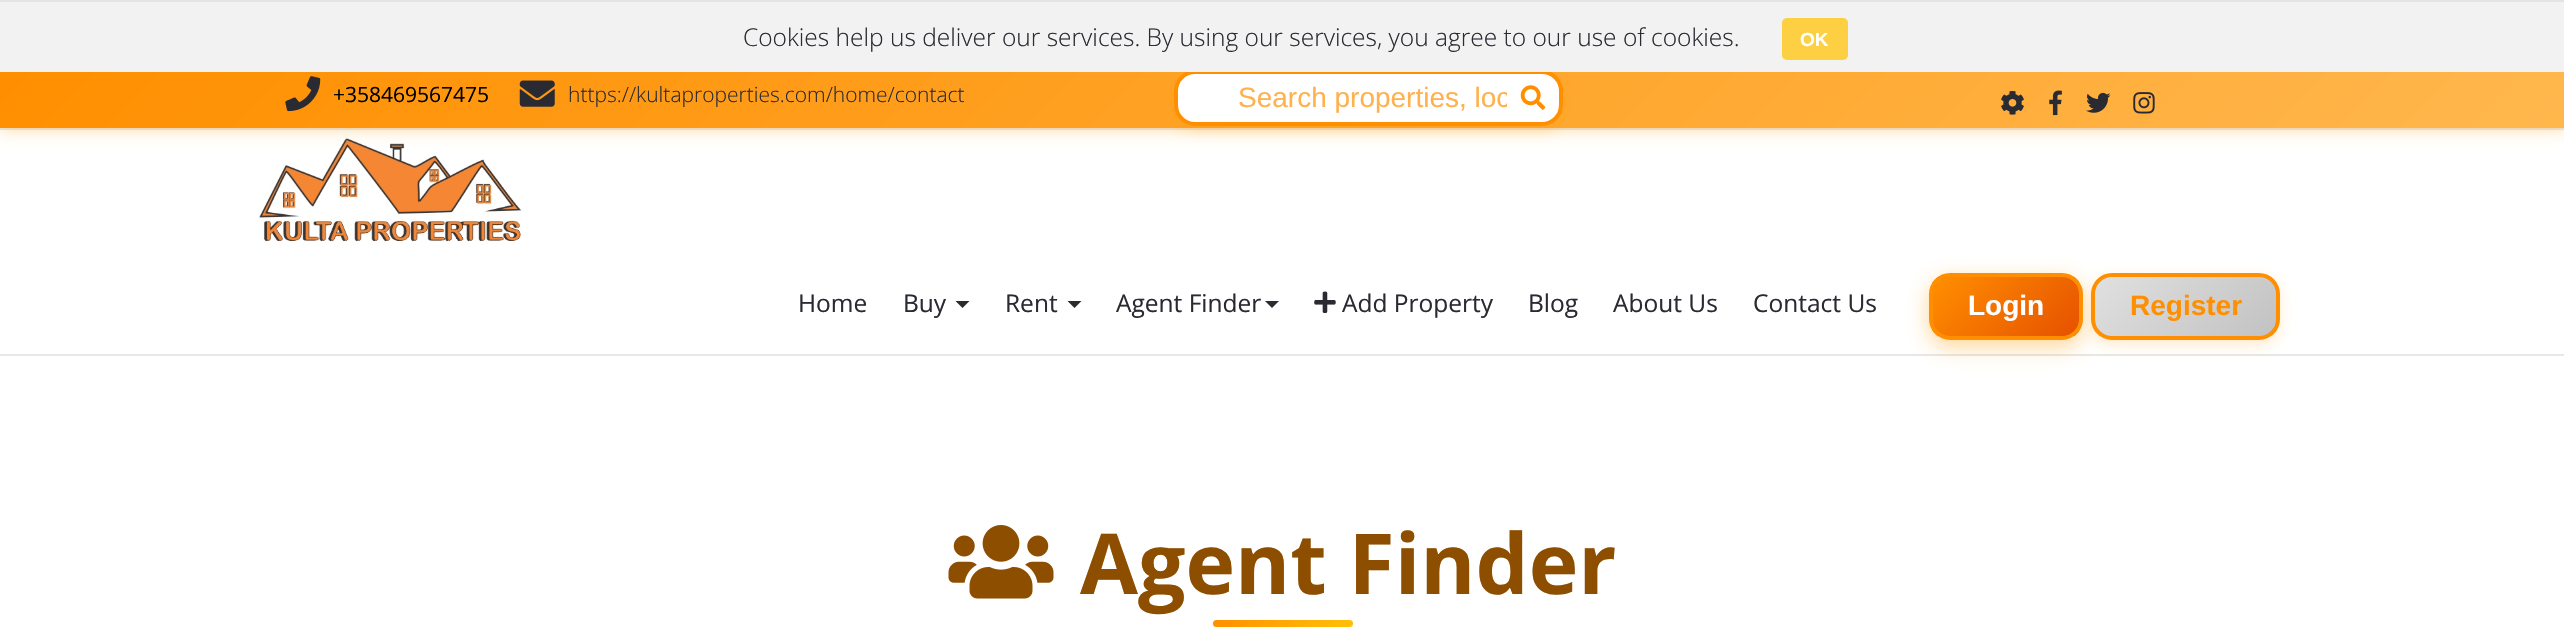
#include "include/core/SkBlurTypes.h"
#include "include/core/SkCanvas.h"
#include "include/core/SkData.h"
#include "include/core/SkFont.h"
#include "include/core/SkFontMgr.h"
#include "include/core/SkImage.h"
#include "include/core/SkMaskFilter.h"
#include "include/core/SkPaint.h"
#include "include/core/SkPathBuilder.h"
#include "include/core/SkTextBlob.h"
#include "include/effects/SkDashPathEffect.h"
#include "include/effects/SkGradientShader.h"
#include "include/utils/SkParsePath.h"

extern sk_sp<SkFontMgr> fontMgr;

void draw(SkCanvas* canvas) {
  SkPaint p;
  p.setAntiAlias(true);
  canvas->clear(SK_ColorWHITE);
  p.setColor(SkColorSetRGB(231, 231, 231));
  canvas->drawRect(SkRect::MakeLTRB(0, 128, 2564, 130), p);
  canvas->drawImageRect(SkImages::DeferredFromEncodedData(SkData::MakeFromFileName("images/8.png")), SkRect::MakeLTRB(259, 138, 522, 242), SkSamplingOptions());
  p.setColor(SkColorSetARGB(77, 255, 152, 0));
  p.setMaskFilter(SkMaskFilter::MakeBlur(kNormal_SkBlurStyle, 7));
  canvas->drawRect(SkRect::MakeLTRB(0, 74, 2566, 131), p);
  p.setMaskFilter(nullptr);
  {
    const SkColor colors[] = {SkColorSetRGB(255, 143, 0), SkColorSetRGB(255, 183, 77)};
    const float stops[] = {0, 1};
    const SkPoint ends[] = {{627, -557}, {1939, 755}};
    p.setShader(SkGradientShader::MakeLinear(ends, colors, stops, 2, SkTileMode::kClamp));
    p.setAlpha(255);
  }
  canvas->drawRect(SkRect::MakeLTRB(0, 72, 2564, 128), p);
  p.setShader(nullptr);
  p.setColor(SkColorSetARGB(51, 255, 152, 0));
  p.setMaskFilter(SkMaskFilter::MakeBlur(kNormal_SkBlurStyle, 7));
  canvas->drawRoundRect(SkRect::MakeLTRB(1174, 75, 1563, 131), 21, 21, p);
  p.setMaskFilter(nullptr);
  p.setColor(SK_ColorWHITE);
  canvas->drawRoundRect(SkRect::MakeLTRB(1176, 72, 1561, 124), 19, 19, p);
  p.setStyle(SkPaint::kStroke_Style);
  p.setStrokeWidth(4);
  p.setColor(SkColorSetRGB(255, 143, 0));
  canvas->drawRoundRect(SkRect::MakeLTRB(1176, 72, 1561, 124), 19, 19, p);
  p.setStyle(SkPaint::kFill_Style);
  p.setColor(SkColorSetRGB(242, 242, 242));
  canvas->drawRect(SkRect::MakeLTRB(0, 2, 2564, 72), p);
  p.setColor(SkColorSetRGB(228, 228, 228));
  canvas->drawRect(SkRect::MakeLTRB(0, 0, 2564, 2), p);
  p.setColor(SkColorSetRGB(253, 207, 67));
  canvas->drawRoundRect(SkRect::MakeLTRB(1782, 18, 1848, 60), 5, 5, p);
  canvas->drawImageRect(SkImages::DeferredFromEncodedData(SkData::MakeFromFileName("images/1.png")), SkRect::MakeLTRB(285, 76, 321, 112), SkSamplingOptions());
  canvas->drawImageRect(SkImages::DeferredFromEncodedData(SkData::MakeFromFileName("images/2.png")), SkRect::MakeLTRB(519, 80, 555, 107), SkSamplingOptions());
  canvas->drawImageRect(SkImages::DeferredFromEncodedData(SkData::MakeFromFileName("images/3.png")), SkRect::MakeLTRB(1520, 85, 1546, 110), SkSamplingOptions());
  canvas->drawImageRect(SkImages::DeferredFromEncodedData(SkData::MakeFromFileName("images/4.png")), SkRect::MakeLTRB(2001, 90, 2024, 115), SkSamplingOptions());
  canvas->drawImageRect(SkImages::DeferredFromEncodedData(SkData::MakeFromFileName("images/5.png")), SkRect::MakeLTRB(2049, 90, 2062, 116), SkSamplingOptions());
  canvas->drawImageRect(SkImages::DeferredFromEncodedData(SkData::MakeFromFileName("images/6.png")), SkRect::MakeLTRB(2086, 92, 2111, 113), SkSamplingOptions());
  canvas->drawImageRect(SkImages::DeferredFromEncodedData(SkData::MakeFromFileName("images/7.png")), SkRect::MakeLTRB(2133, 92, 2155, 114), SkSamplingOptions());
  p.setColor(SkColorSetRGB(231, 231, 231));
  canvas->drawRect(SkRect::MakeLTRB(0, 354, 2564, 356), p);
  p.setColor(SkColorSetRGB(42, 42, 51));
  canvas->drawPath(SkPathBuilder().moveTo(955.5f, 301).lineTo(969.5f, 301).lineTo(962.5f, 308).close().detach(), p);
  canvas->drawPath(SkPathBuilder().moveTo(1067.5f, 301).lineTo(1081.5f, 301).lineTo(1074.5f, 308).close().detach(), p);
  canvas->drawPath(SkPathBuilder().moveTo(1265, 301).lineTo(1279, 301).lineTo(1272, 308).close().detach(), p);
  canvas->drawImageRect(SkImages::DeferredFromEncodedData(SkData::MakeFromFileName("images/9.png")), SkRect::MakeLTRB(1314, 291, 1336, 313), SkSamplingOptions());
  p.setColor(SkColorSetARGB(102, 255, 152, 0));
  p.setMaskFilter(SkMaskFilter::MakeBlur(kNormal_SkBlurStyle, 10.5f));
  canvas->drawRoundRect(SkRect::MakeLTRB(1929, 280, 2083, 347), 21, 21, p);
  p.setMaskFilter(nullptr);
  canvas->save();
  canvas->clipPath(SkPathBuilder().moveTo(1950, 273).lineTo(2062, 273).cubicTo(2073.5f, 273, 2083, 282.5f, 2083, 294).lineTo(2083, 319).cubicTo(2083, 330.5f, 2073.5f, 340, 2062, 340).lineTo(1950, 340).cubicTo(1938.5f, 340, 1929, 330.5f, 1929, 319).lineTo(1929, 294).cubicTo(1929, 282.5f, 1938.5f, 273, 1950, 273).close().detach(), true);
  {
    const SkColor colors[] = {SkColorSetRGB(255, 143, 0), SkColorSetRGB(230, 81, 0)};
    const float stops[] = {0, 1};
    const SkPoint ends[] = {{1954, 255}, {2057, 358}};
    p.setShader(SkGradientShader::MakeLinear(ends, colors, stops, 2, SkTileMode::kClamp));
    p.setAlpha(255);
  }
  canvas->drawRect(SkRect::MakeLTRB(1932, 277, 2079, 336), p);
  canvas->restore();
  p.setStyle(SkPaint::kStroke_Style);
  p.setShader(nullptr);
  p.setColor(SkColorSetRGB(255, 143, 0));
  canvas->drawRoundRect(SkRect::MakeLTRB(1931, 275, 2081, 338), 19, 19, p);
  p.setStyle(SkPaint::kFill_Style);
  p.setColor(SkColorSetARGB(51, 255, 152, 0));
  p.setMaskFilter(SkMaskFilter::MakeBlur(kNormal_SkBlurStyle, 7));
  canvas->drawRoundRect(SkRect::MakeLTRB(2091, 278, 2280, 345), 21, 21, p);
  p.setMaskFilter(nullptr);
  canvas->save();
  canvas->clipPath(SkPathBuilder().moveTo(2112, 273).lineTo(2259, 273).cubicTo(2270.5f, 273, 2280, 282.5f, 2280, 294).lineTo(2280, 319).cubicTo(2280, 330.5f, 2270.5f, 340, 2259, 340).lineTo(2112, 340).cubicTo(2100.5f, 340, 2091, 330.5f, 2091, 319).lineTo(2091, 294).cubicTo(2091, 282.5f, 2100.5f, 273, 2112, 273).close().detach(), true);
  {
    const SkColor colors[] = {SkColorSetRGB(224, 224, 224), SkColorSetRGB(194, 194, 194)};
    const float stops[] = {0, 1};
    const SkPoint ends[] = {{2125, 246}, {2246, 367}};
    p.setShader(SkGradientShader::MakeLinear(ends, colors, stops, 2, SkTileMode::kClamp));
    p.setAlpha(255);
  }
  canvas->drawRect(SkRect::MakeLTRB(2095, 277, 2277, 336), p);
  canvas->restore();
  p.setStyle(SkPaint::kStroke_Style);
  p.setShader(nullptr);
  p.setColor(SkColorSetRGB(255, 143, 0));
  canvas->drawRoundRect(SkRect::MakeLTRB(2093, 275, 2278, 338), 19, 19, p);
  canvas->drawImageRect(SkImages::DeferredFromEncodedData(SkData::MakeFromFileName("images/10.png")), SkRect::MakeLTRB(948, 525, 1054, 599), SkSamplingOptions());
  p.setStyle(SkPaint::kFill_Style);
  {
    const SkColor colors[] = {SkColorSetRGB(255, 143, 0), SkColorSetRGB(255, 193, 7)};
    const float stops[] = {0, 1};
    const SkPoint ends[] = {{1246, 586}, {1320, 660}};
    p.setShader(SkGradientShader::MakeLinear(ends, colors, stops, 2, SkTileMode::kClamp));
    p.setAlpha(255);
  }
  canvas->drawRoundRect(SkRect::MakeLTRB(1213, 620, 1353, 627), 3.5f, 3.5f, p);
  SkFont font1(fontMgr->matchFamilyStyle("Open Sans", SkFontStyle(300, SkFontStyle::kNormal_Width, SkFontStyle::kUpright_Slant)), 24.5f);
  font1.setSubpixel(true);
  p.setShader(nullptr);
  p.setColor(SkColorSetRGB(42, 42, 51));
  canvas->drawString("Cookies help us deliver our services. By using our services, you agree to our use of cookies.", 743, 46, font1, p);
  SkFont font2(fontMgr->matchFamilyStyle("Liberation Sans", SkFontStyle::Bold()), 19);
  font2.setSubpixel(true);
  p.setColor(SK_ColorWHITE);
  canvas->drawString("OK", 1800, 46, font2, p);
  SkFont font3(fontMgr->matchFamilyStyle("Open Sans", SkFontStyle::Normal()), 21);
  font3.setSubpixel(true);
  p.setColor(SK_ColorBLACK);
  canvas->drawString("+358469567475", 333, 102, font3, p);
  SkFont font4(fontMgr->matchFamilyStyle("Open Sans", SkFontStyle(300, SkFontStyle::kNormal_Width, SkFontStyle::kUpright_Slant)), 21);
  font4.setSubpixel(true);
  p.setColor(SkColorSetRGB(42, 42, 51));
  canvas->drawString("https://kultaproperties.com/home/contact", 568, 102, font4, p);
  canvas->save();
  canvas->clipRect(SkRect::MakeLTRB(1239, 82, 1507, 114));
  SkFont font5(fontMgr->matchFamilyStyle("Liberation Sans", SkFontStyle::Normal()), 28);
  font5.setSubpixel(true);
  p.setColor(SkColorSetRGB(255, 177, 77));
  canvas->drawString("Search properties, loc", 1238, 107, font5, p);
  canvas->restore();
  SkFont font6(fontMgr->matchFamilyStyle("Open Sans", SkFontStyle::Normal()), 24.5f);
  font6.setSubpixel(true);
  p.setColor(SkColorSetRGB(42, 42, 51));
  canvas->drawString("Home", 798, 312, font6, p);
  canvas->drawString("Buy", 903, 312, font6, p);
  canvas->drawString("Rent", 1005, 312, font6, p);
  canvas->drawString("Agent Finder", 1116, 312, font6, p);
  canvas->drawString("Add Property", 1342, 312, font6, p);
  canvas->drawString("Blog", 1528, 312, font6, p);
  canvas->drawString("About Us", 1613, 312, font6, p);
  canvas->drawString("Contact Us", 1753, 312, font6, p);
  SkFont font7(fontMgr->matchFamilyStyle("Liberation Sans", SkFontStyle::Bold()), 28);
  font7.setSubpixel(true);
  p.setColor(SK_ColorWHITE);
  canvas->drawString("Login", 1968, 315, font7, p);
  p.setColor(SkColorSetRGB(255, 143, 0));
  canvas->drawString("Register", 2130, 315, font7, p);
  SkFont font8(fontMgr->matchFamilyStyle("Open Sans", SkFontStyle::Bold()), 84);
  font8.setSubpixel(true);
  p.setColor(SkColorSetRGB(141, 78, 0));
  canvas->drawString("Agent Finder", 1080, 594, font8, p);
}
